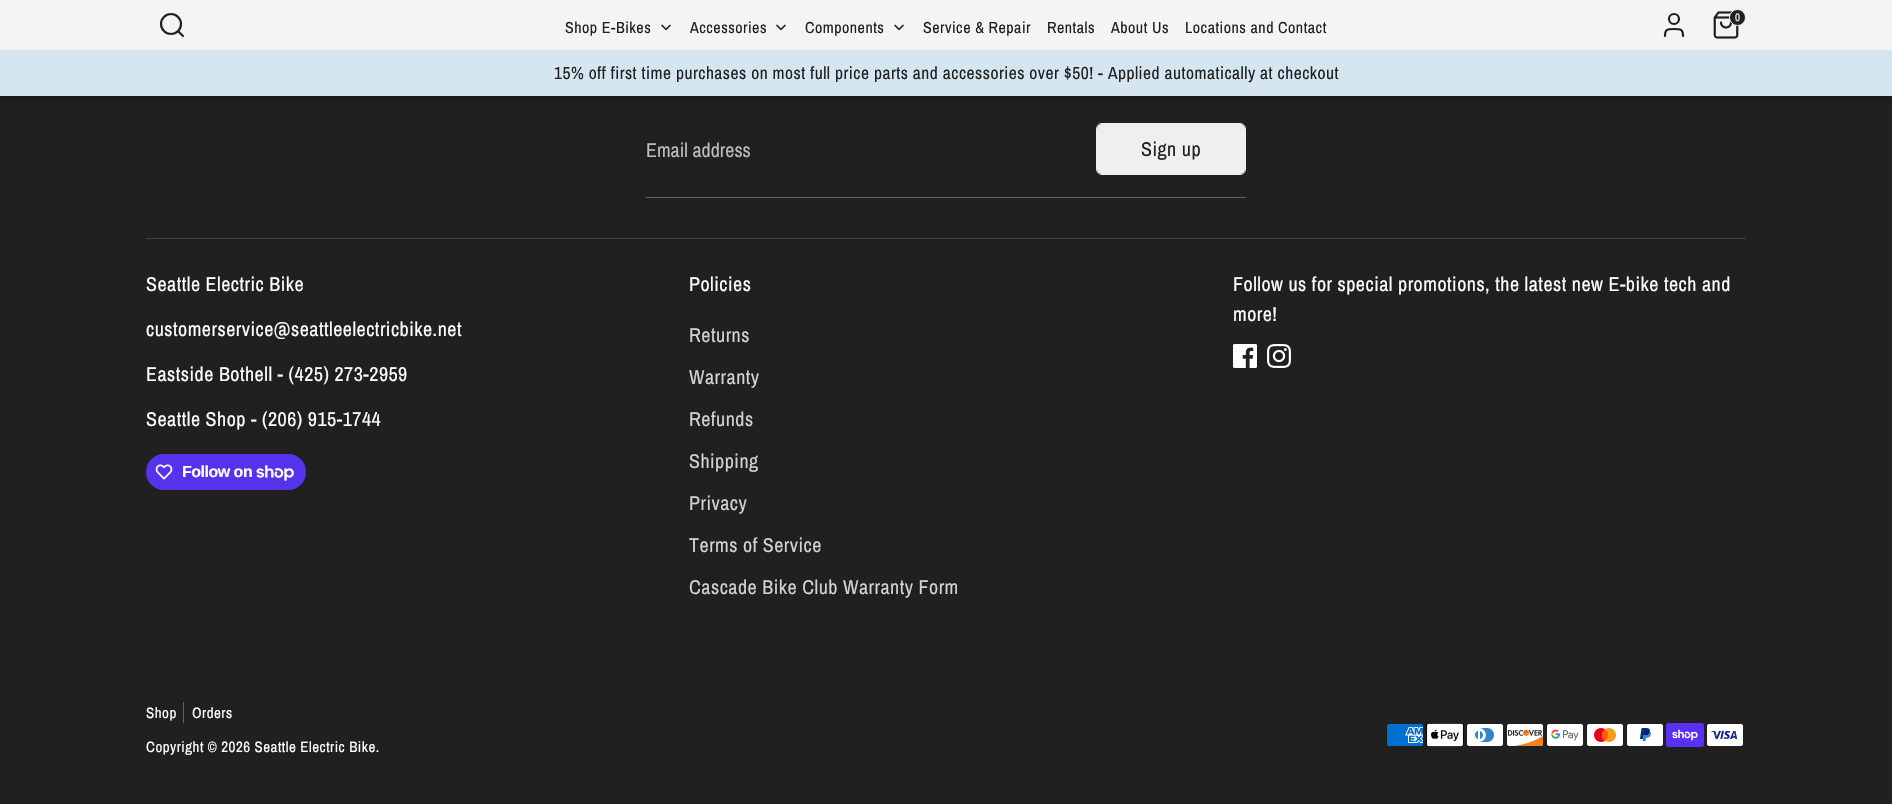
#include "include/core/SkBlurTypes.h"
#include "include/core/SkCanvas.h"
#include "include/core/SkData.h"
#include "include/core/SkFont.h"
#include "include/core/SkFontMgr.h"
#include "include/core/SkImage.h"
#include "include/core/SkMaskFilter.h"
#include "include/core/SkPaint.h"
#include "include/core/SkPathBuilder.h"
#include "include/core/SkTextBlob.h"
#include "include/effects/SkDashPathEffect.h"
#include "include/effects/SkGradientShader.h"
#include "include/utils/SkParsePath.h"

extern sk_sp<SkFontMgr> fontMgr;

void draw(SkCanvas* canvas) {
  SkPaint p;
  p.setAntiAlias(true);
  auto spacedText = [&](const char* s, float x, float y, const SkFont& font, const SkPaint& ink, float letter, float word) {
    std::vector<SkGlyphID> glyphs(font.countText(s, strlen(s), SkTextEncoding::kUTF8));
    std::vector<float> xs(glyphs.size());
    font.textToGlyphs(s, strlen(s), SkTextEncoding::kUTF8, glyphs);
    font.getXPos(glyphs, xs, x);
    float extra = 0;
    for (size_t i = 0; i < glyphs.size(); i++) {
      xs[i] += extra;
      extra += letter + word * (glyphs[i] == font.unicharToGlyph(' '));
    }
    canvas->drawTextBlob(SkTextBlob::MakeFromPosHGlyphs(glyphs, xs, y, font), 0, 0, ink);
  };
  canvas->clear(SkColorSetRGB(32, 32, 32));
  p.setColor(SkColorSetARGB(191, 0, 0, 0));
  p.setMaskFilter(SkMaskFilter::MakeBlur(kNormal_SkBlurStyle, 5));
  canvas->drawRect(SkRect::MakeLTRB(0, -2, 1892, 94), p);
  p.setMaskFilter(nullptr);
  p.setColor(SkColorSetRGB(244, 244, 244));
  canvas->drawRect(SkRect::MakeLTRB(0, 0, 1892, 50), p);
  p.setStyle(SkPaint::kStroke_Style);
  p.setStrokeWidth(2.2f);
  p.setColor(SkColorSetRGB(32, 32, 32));
  canvas->drawCircle(171, 24, 10, p);
  p.setStrokeCap(SkPaint::kRound_Cap);
  p.setStrokeJoin(SkPaint::kRound_Join);
  canvas->drawPath(SkPathBuilder().moveTo(183, 36).lineTo(178, 31).detach(), p);
  canvas->drawPath(SkPathBuilder().moveTo(1683, 36).cubicTo(1683, 29, 1680.5f, 29, 1674, 29).cubicTo(1667.5f, 29, 1665, 29, 1665, 36).detach(), p);
  p.setStrokeCap(SkPaint::kButt_Cap);
  p.setStrokeJoin(SkPaint::kMiter_Join);
  canvas->drawCircle(1674, 19, 5, p);
  canvas->drawImageRect(SkImages::DeferredFromEncodedData(SkData::MakeFromFileName("images/1.png")), SkRect::MakeLTRB(1713, 11, 1739, 39), SkSamplingOptions());
  p.setStyle(SkPaint::kFill_Style);
  canvas->drawCircle(1737.5f, 17.5f, 8, p);
  p.setStyle(SkPaint::kStroke_Style);
  p.setStrokeWidth(1);
  p.setColor(SkColorSetRGB(244, 244, 244));
  canvas->drawCircle(1737.5f, 17.5f, 8, p);
  canvas->drawImageRect(SkImages::DeferredFromEncodedData(SkData::MakeFromFileName("images/2.png")), SkRect::MakeLTRB(661, 24, 671, 31), SkSamplingOptions());
  canvas->drawImageRect(SkImages::DeferredFromEncodedData(SkData::MakeFromFileName("images/2.png")), SkRect::MakeLTRB(776, 24, 786, 31), SkSamplingOptions());
  canvas->drawImageRect(SkImages::DeferredFromEncodedData(SkData::MakeFromFileName("images/2.png")), SkRect::MakeLTRB(894, 24, 904, 31), SkSamplingOptions());
  p.setStyle(SkPaint::kFill_Style);
  p.setColor(SkColorSetRGB(214, 230, 241));
  canvas->drawRect(SkRect::MakeLTRB(0, 50, 1892, 96), p);
  p.setColor(SkColorSetRGB(99, 99, 99));
  canvas->drawRect(SkRect::MakeLTRB(646, 197, 1246, 198), p);
  p.setStyle(SkPaint::kStroke_Style);
  p.setColor(SkColorSetRGB(239, 239, 239));
  canvas->drawRoundRect(SkRect::MakeLTRB(1096.5f, 123.5f, 1245.5f, 174.5f), 5.5f, 5.5f, p);
  p.setStyle(SkPaint::kFill_Style);
  canvas->drawRoundRect(SkRect::MakeLTRB(1097, 124, 1245, 174), 5, 5, p);
  p.setColor(SkColorSetRGB(65, 65, 65));
  canvas->drawRect(SkRect::MakeLTRB(146, 238, 1746, 239), p);
  p.setColor(SkColorSetRGB(84, 51, 235));
  canvas->drawRoundRect(SkRect::MakeLTRB(146, 454, 306, 490), 18, 18, p);
  canvas->drawImageRect(SkImages::DeferredFromEncodedData(SkData::MakeFromFileName("images/3.png")), SkRect::MakeLTRB(155, 464, 173, 480), SkSamplingOptions());
  canvas->drawImageRect(SkImages::DeferredFromEncodedData(SkData::MakeFromFileName("images/4.png")), SkRect::MakeLTRB(256, 465, 294, 481), SkSamplingOptions());
  canvas->drawImageRect(SkImages::DeferredFromEncodedData(SkData::MakeFromFileName("images/5.png")), SkRect::MakeLTRB(1233, 344, 1257, 368), SkSamplingOptions());
  canvas->drawImageRect(SkImages::DeferredFromEncodedData(SkData::MakeFromFileName("images/6.png")), SkRect::MakeLTRB(1267, 344, 1291, 368), SkSamplingOptions());
  p.setColor(SkColorSetRGB(99, 99, 99));
  canvas->drawRect(SkRect::MakeLTRB(183, 702, 184, 723), p);
  canvas->drawImageRect(SkImages::DeferredFromEncodedData(SkData::MakeFromFileName("images/7.png")), SkRect::MakeLTRB(1387, 724, 1423, 746), SkSamplingOptions());
  canvas->drawImageRect(SkImages::DeferredFromEncodedData(SkData::MakeFromFileName("images/8.png")), SkRect::MakeLTRB(1426, 723, 1464, 747), SkSamplingOptions());
  canvas->drawImageRect(SkImages::DeferredFromEncodedData(SkData::MakeFromFileName("images/9.png")), SkRect::MakeLTRB(1467, 724, 1503, 746), SkSamplingOptions());
  canvas->drawImageRect(SkImages::DeferredFromEncodedData(SkData::MakeFromFileName("images/10.png")), SkRect::MakeLTRB(1507, 724, 1543, 746), SkSamplingOptions());
  canvas->drawImageRect(SkImages::DeferredFromEncodedData(SkData::MakeFromFileName("images/11.png")), SkRect::MakeLTRB(1547, 724, 1583, 746), SkSamplingOptions());
  canvas->drawImageRect(SkImages::DeferredFromEncodedData(SkData::MakeFromFileName("images/12.png")), SkRect::MakeLTRB(1587, 724, 1623, 746), SkSamplingOptions());
  canvas->drawImageRect(SkImages::DeferredFromEncodedData(SkData::MakeFromFileName("images/13.png")), SkRect::MakeLTRB(1627, 724, 1663, 746), SkSamplingOptions());
  canvas->drawImageRect(SkImages::DeferredFromEncodedData(SkData::MakeFromFileName("images/14.png")), SkRect::MakeLTRB(1666, 723, 1704, 747), SkSamplingOptions());
  canvas->drawImageRect(SkImages::DeferredFromEncodedData(SkData::MakeFromFileName("images/15.png")), SkRect::MakeLTRB(1707, 724, 1743, 746), SkSamplingOptions());
  SkFont font1(fontMgr->matchFamilyStyle("Archivo Narrow", SkFontStyle::Normal()), 11);
  font1.setSubpixel(true);
  p.setColor(SkColorSetRGB(244, 244, 244));
  canvas->drawString("0", 1735, 21, font1, p);
  SkFont font2(fontMgr->matchFamilyStyle("Archivo Narrow", SkFontStyle::Normal()), 16);
  font2.setSubpixel(true);
  p.setColor(SkColorSetRGB(32, 32, 32));
  spacedText("Shop E-Bikes", 565, 33, font2, p, 0.5f, 0);
  spacedText("Accessories", 690, 33, font2, p, 0.5f, 0);
  spacedText("Components", 805, 33, font2, p, 0.5f, 0);
  spacedText("Service & Repair", 923, 33, font2, p, 0.5f, 0);
  spacedText("Rentals", 1047, 33, font2, p, 0.5f, 0);
  spacedText("About Us", 1111, 33, font2, p, 0.5f, 0);
  spacedText("Locations and Contact", 1185, 33, font2, p, 0.5f, 0);
  SkFont font3(fontMgr->matchFamilyStyle("Archivo Narrow", SkFontStyle::Normal()), 17.5f);
  font3.setSubpixel(true);
  spacedText("15% off first time purchases on most full price parts and accessories over $50! - Applied automatically at checkout", 554, 79, font3, p, 0.5f, 0);
  SkFont font4(fontMgr->matchFamilyStyle("Archivo Narrow", SkFontStyle::Normal()), 20);
  font4.setSubpixel(true);
  p.setColor(SkColorSetRGB(188, 188, 188));
  canvas->drawString("Email address", 646, 157, font4, p);
  p.setColor(SkColorSetRGB(32, 32, 32));
  spacedText("Sign up", 1141, 156, font4, p, 0.5f, 0);
  p.setColor(SK_ColorWHITE);
  spacedText("Seattle Electric Bike", 146, 291, font4, p, 0.5f, 0);
  spacedText("customerservice@seattleelectricbike.net", 146, 336, font4, p, 0.5f, 0);
  spacedText("Eastside Bothell - (425) 273-2959", 146, 381, font4, p, 0.5f, 0);
  spacedText("Seattle Shop - (206) 915-1744", 146, 426, font4, p, 0.5f, 0);
  SkFont font5(fontMgr->matchFamilyStyle("Liberation Sans", SkFontStyle::Bold()), 16);
  font5.setSubpixel(true);
  spacedText("Follow on", 182, 477, font5, p, -0.5f, 0);
  spacedText("Policies", 689, 291, font4, p, 0.5f, 0);
  p.setColor(SkColorSetRGB(210, 210, 210));
  spacedText("Returns", 689, 342, font4, p, 0.5f, 0);
  spacedText("Warranty", 689, 384, font4, p, 0.5f, 0);
  spacedText("Refunds", 689, 426, font4, p, 0.5f, 0);
  spacedText("Shipping", 689, 468, font4, p, 0.5f, 0);
  spacedText("Privacy", 689, 510, font4, p, 0.5f, 0);
  spacedText("Terms of Service", 689, 552, font4, p, 0.5f, 0);
  spacedText("Cascade Bike Club Warranty Form", 689, 594, font4, p, 0.5f, 0);
  p.setColor(SK_ColorWHITE);
  spacedText("Follow us for special promotions, the latest new E-bike tech and", 1233, 291, font4, p, 0.5f, 0);
  spacedText("more!", 1233, 321, font4, p, 0.5f, 0);
  SkFont font6(fontMgr->matchFamilyStyle("Archivo Narrow", SkFontStyle::Normal()), 15);
  font6.setSubpixel(true);
  spacedText("Shop", 146, 718, font6, p, 0.5f, 0);
  spacedText("Orders", 192, 718, font6, p, 0.5f, 0);
  spacedText("Copyright © 2026 Seattle Electric Bike.", 146, 752, font6, p, 0.5f, 0);
}
